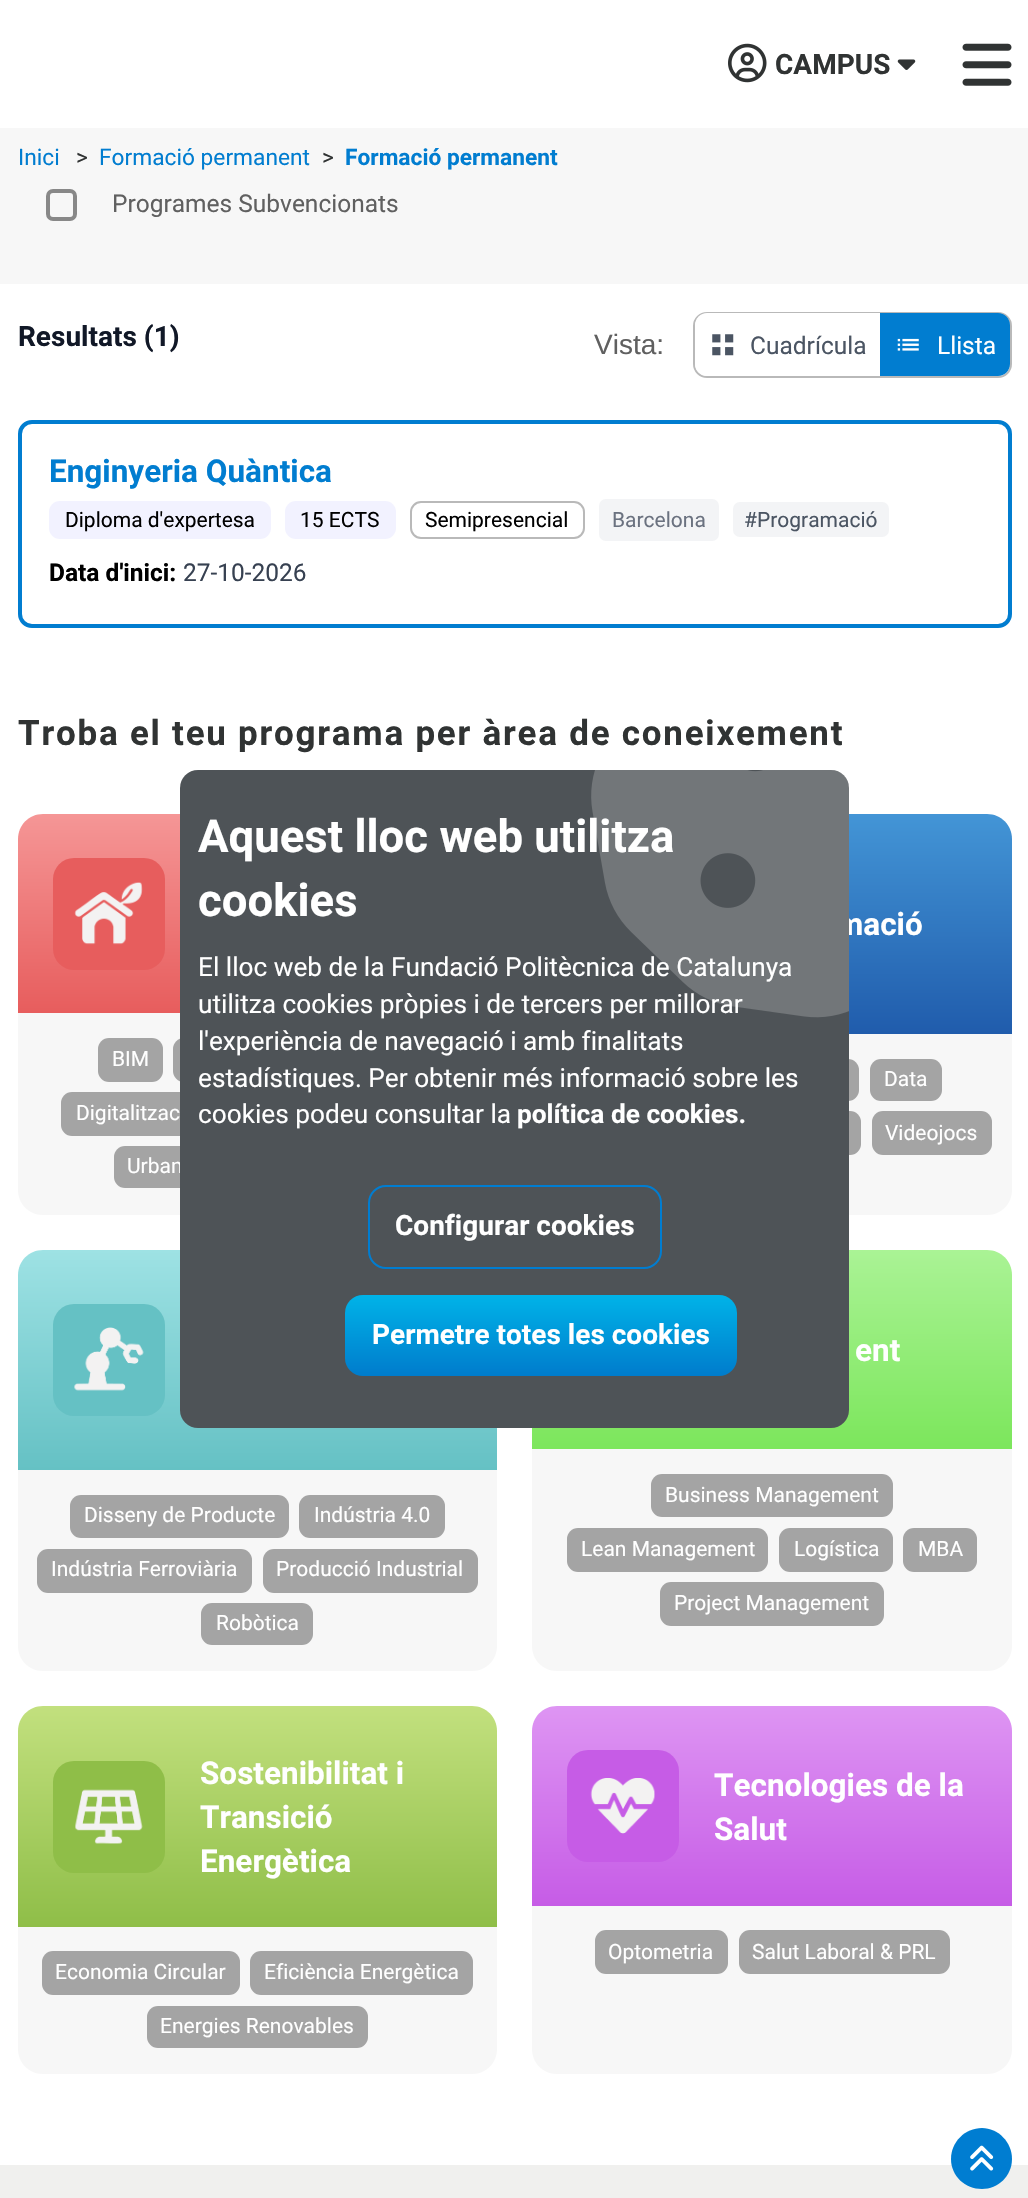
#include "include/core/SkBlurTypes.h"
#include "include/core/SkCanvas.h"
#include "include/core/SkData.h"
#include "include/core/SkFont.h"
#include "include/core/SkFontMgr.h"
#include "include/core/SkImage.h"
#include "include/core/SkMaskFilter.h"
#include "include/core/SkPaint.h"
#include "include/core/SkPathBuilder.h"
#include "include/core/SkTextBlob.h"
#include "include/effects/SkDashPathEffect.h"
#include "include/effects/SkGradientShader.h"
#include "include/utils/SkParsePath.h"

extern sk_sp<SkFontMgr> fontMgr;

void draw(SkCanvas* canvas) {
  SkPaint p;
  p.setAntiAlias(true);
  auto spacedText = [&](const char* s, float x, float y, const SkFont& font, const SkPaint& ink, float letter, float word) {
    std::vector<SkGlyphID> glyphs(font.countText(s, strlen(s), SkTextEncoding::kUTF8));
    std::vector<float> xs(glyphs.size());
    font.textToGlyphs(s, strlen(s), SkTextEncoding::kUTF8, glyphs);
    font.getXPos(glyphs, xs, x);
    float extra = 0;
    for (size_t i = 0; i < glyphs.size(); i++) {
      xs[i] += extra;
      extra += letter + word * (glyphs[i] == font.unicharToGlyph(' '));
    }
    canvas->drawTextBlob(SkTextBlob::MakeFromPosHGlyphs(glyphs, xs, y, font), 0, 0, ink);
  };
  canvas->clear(SK_ColorWHITE);
  p.setColor(SkColorSetRGB(247, 247, 247));
  canvas->drawRect(SkRect::MakeLTRB(0, 128, 1028, 184), p);
  canvas->drawImageRect(SkImages::DeferredFromEncodedData(SkData::MakeFromFileName("images/1.png")), SkRect::MakeLTRB(728, 43, 767, 83), SkSamplingOptions());
  canvas->drawImageRect(SkImages::DeferredFromEncodedData(SkData::MakeFromFileName("images/2.png")), SkRect::MakeLTRB(897, 59, 916, 70), SkSamplingOptions());
  canvas->drawImageRect(SkImages::DeferredFromEncodedData(SkData::MakeFromFileName("images/3.png")), SkRect::MakeLTRB(962, 43, 1012, 86), SkSamplingOptions());
  canvas->drawRect(SkRect::MakeLTRB(0, 184, 1028, 284), p);
  p.setStyle(SkPaint::kStroke_Style);
  p.setStrokeWidth(4);
  p.setColor(SkColorSetRGB(136, 136, 136));
  canvas->drawRoundRect(SkRect::MakeLTRB(48, 191, 75, 219), 5, 5, p);
  p.setStrokeWidth(2);
  p.setColor(SkColorSetRGB(185, 185, 185));
  canvas->drawRoundRect(SkRect::MakeLTRB(694, 313, 1011, 377), 13, 13, p);
  p.setStyle(SkPaint::kFill_Style);
  p.setColor(SK_ColorWHITE);
  canvas->drawPath(SkPathBuilder().moveTo(707, 313).lineTo(880, 313).lineTo(880, 376).lineTo(707, 376).cubicTo(700.5f, 376, 695, 370.5f, 695, 364).lineTo(695, 325).cubicTo(695, 318.5f, 700.5f, 313, 707, 313).close().detach(), p);
  canvas->drawImageRect(SkImages::DeferredFromEncodedData(SkData::MakeFromFileName("images/4.png")), SkRect::MakeLTRB(712, 334, 734, 356), SkSamplingOptions());
  p.setColor(SkColorSetRGB(1, 125, 208));
  canvas->drawPath(SkPathBuilder().moveTo(880, 313).lineTo(998, 313).cubicTo(1004.5f, 313, 1010, 318.5f, 1010, 325).lineTo(1010, 364).cubicTo(1010, 370.5f, 1004.5f, 376, 998, 376).lineTo(880, 376).close().detach(), p);
  canvas->drawImageRect(SkImages::DeferredFromEncodedData(SkData::MakeFromFileName("images/5.png")), SkRect::MakeLTRB(897, 338, 919, 351), SkSamplingOptions());
  p.setStyle(SkPaint::kStroke_Style);
  p.setStrokeWidth(4);
  canvas->drawRoundRect(SkRect::MakeLTRB(20, 422, 1010, 626), 12, 12, p);
  p.setStyle(SkPaint::kFill_Style);
  p.setColor(SkColorSetRGB(242, 242, 255));
  canvas->drawRoundRect(SkRect::MakeLTRB(49, 501, 271, 539), 11, 11, p);
  canvas->drawRoundRect(SkRect::MakeLTRB(285, 501, 396, 539), 11, 11, p);
  p.setStyle(SkPaint::kStroke_Style);
  p.setStrokeWidth(2);
  p.setColor(SkColorSetRGB(185, 185, 185));
  canvas->drawRoundRect(SkRect::MakeLTRB(411, 502, 584, 538), 10, 10, p);
  p.setStyle(SkPaint::kFill_Style);
  p.setColor(SkColorSetRGB(243, 244, 246));
  canvas->drawRoundRect(SkRect::MakeLTRB(599, 499, 719, 541), 7, 7, p);
  canvas->drawRoundRect(SkRect::MakeLTRB(733, 502, 889, 537), 7, 7, p);
  {
    const SkColor colors[] = {SkColorSetRGB(245, 150, 150), SkColorSetRGB(231, 93, 93)};
    const float stops[] = {0, 1};
    const SkPoint ends[] = {{257, 814}, {257, 1013}};
    p.setShader(SkGradientShader::MakeLinear(ends, colors, stops, 2, SkTileMode::kClamp));
    p.setAlpha(255);
  }
  canvas->drawPath(SkPathBuilder().moveTo(43, 814).lineTo(472, 814).cubicTo(486, 814, 497, 825, 497, 839).lineTo(497, 1013).lineTo(18, 1013).lineTo(18, 839).cubicTo(18, 825, 29, 814, 43, 814).close().detach(), p);
  p.setShader(nullptr);
  p.setColor(SkColorSetRGB(231, 93, 93));
  canvas->drawRoundRect(SkRect::MakeLTRB(53, 858, 165, 970), 21, 21, p);
  canvas->drawImageRect(SkImages::DeferredFromEncodedData(SkData::MakeFromFileName("images/6.png")), SkRect::MakeLTRB(74, 882, 143, 945), SkSamplingOptions());
  p.setColor(SkColorSetRGB(247, 247, 247));
  canvas->drawPath(SkPathBuilder().moveTo(18, 1013).lineTo(497, 1013).lineTo(497, 1190).cubicTo(497, 1204, 486, 1215, 472, 1215).lineTo(43, 1215).cubicTo(29, 1215, 18, 1204, 18, 1190).close().detach(), p);
  p.setColor(SkColorSetRGB(164, 164, 164));
  canvas->drawRoundRect(SkRect::MakeLTRB(98, 1038, 163, 1082), 11, 11, p);
  canvas->drawRoundRect(SkRect::MakeLTRB(173, 1038, 417, 1082), 11, 11, p);
  canvas->drawRoundRect(SkRect::MakeLTRB(61, 1092, 210, 1136), 11, 11, p);
  canvas->drawRoundRect(SkRect::MakeLTRB(114, 1146, 401, 1188), 11, 11, p);
  {
    const SkColor colors[] = {SkColorSetRGB(67, 149, 214), SkColorSetRGB(32, 92, 172)};
    const float stops[] = {0, 1};
    const SkPoint ends[] = {{772, 814}, {772, 1034}};
    p.setShader(SkGradientShader::MakeLinear(ends, colors, stops, 2, SkTileMode::kClamp));
    p.setAlpha(255);
  }
  canvas->drawPath(SkPathBuilder().moveTo(557, 814).lineTo(987, 814).cubicTo(1001, 814, 1012, 825, 1012, 839).lineTo(1012, 1034).lineTo(532, 1034).lineTo(532, 839).cubicTo(532, 825, 543, 814, 557, 814).close().detach(), p);
  p.setShader(nullptr);
  p.setColor(SkColorSetRGB(247, 247, 247));
  canvas->drawPath(SkPathBuilder().moveTo(532, 1034).lineTo(1012, 1034).lineTo(1012, 1190).cubicTo(1012, 1204, 1001, 1215, 987, 1215).lineTo(557, 1215).cubicTo(543, 1215, 532, 1204, 532, 1190).close().detach(), p);
  p.setColor(SkColorSetRGB(164, 164, 164));
  canvas->drawRoundRect(SkRect::MakeLTRB(777, 1059, 859, 1101), 11, 11, p);
  canvas->drawRoundRect(SkRect::MakeLTRB(870, 1059, 942, 1101), 11, 11, p);
  canvas->drawRoundRect(SkRect::MakeLTRB(712, 1111, 861, 1155), 11, 11, p);
  canvas->drawRoundRect(SkRect::MakeLTRB(872, 1111, 992, 1155), 11, 11, p);
  {
    const SkColor colors[] = {SkColorSetRGB(158, 226, 228), SkColorSetRGB(101, 193, 196)};
    const float stops[] = {0, 1};
    const SkPoint ends[] = {{257, 1250}, {257, 1470}};
    p.setShader(SkGradientShader::MakeLinear(ends, colors, stops, 2, SkTileMode::kClamp));
    p.setAlpha(255);
  }
  canvas->drawPath(SkPathBuilder().moveTo(43, 1250).lineTo(472, 1250).cubicTo(486, 1250, 497, 1261, 497, 1275).lineTo(497, 1470).lineTo(18, 1470).lineTo(18, 1275).cubicTo(18, 1261, 29, 1250, 43, 1250).close().detach(), p);
  p.setShader(nullptr);
  p.setColor(SkColorSetRGB(101, 193, 196));
  canvas->drawRoundRect(SkRect::MakeLTRB(53, 1304, 165, 1416), 21, 21, p);
  canvas->drawImageRect(SkImages::DeferredFromEncodedData(SkData::MakeFromFileName("images/7.png")), SkRect::MakeLTRB(74, 1327, 144, 1391), SkSamplingOptions());
  p.setColor(SkColorSetRGB(247, 247, 247));
  canvas->drawPath(SkPathBuilder().moveTo(18, 1470).lineTo(497, 1470).lineTo(497, 1646).cubicTo(497, 1660, 486, 1671, 472, 1671).lineTo(43, 1671).cubicTo(29, 1671, 18, 1660, 18, 1646).close().detach(), p);
  p.setColor(SkColorSetRGB(164, 164, 164));
  canvas->drawRoundRect(SkRect::MakeLTRB(70, 1495, 289, 1538), 11, 11, p);
  canvas->drawRoundRect(SkRect::MakeLTRB(299, 1495, 445, 1538), 11, 11, p);
  canvas->drawRoundRect(SkRect::MakeLTRB(37, 1549, 252, 1593), 11, 11, p);
  canvas->drawRoundRect(SkRect::MakeLTRB(263, 1549, 478, 1593), 11, 11, p);
  canvas->drawRoundRect(SkRect::MakeLTRB(201, 1603, 313, 1645), 11, 11, p);
  {
    const SkColor colors[] = {SkColorSetRGB(170, 243, 149), SkColorSetRGB(124, 230, 92)};
    const float stops[] = {0, 1};
    const SkPoint ends[] = {{772, 1250}, {772, 1449}};
    p.setShader(SkGradientShader::MakeLinear(ends, colors, stops, 2, SkTileMode::kClamp));
    p.setAlpha(255);
  }
  canvas->drawPath(SkPathBuilder().moveTo(557, 1250).lineTo(987, 1250).cubicTo(1001, 1250, 1012, 1261, 1012, 1275).lineTo(1012, 1449).lineTo(532, 1449).lineTo(532, 1275).cubicTo(532, 1261, 543, 1250, 557, 1250).close().detach(), p);
  p.setShader(nullptr);
  p.setColor(SkColorSetRGB(247, 247, 247));
  canvas->drawPath(SkPathBuilder().moveTo(532, 1449).lineTo(1012, 1449).lineTo(1012, 1646).cubicTo(1012, 1660, 1001, 1671, 987, 1671).lineTo(557, 1671).cubicTo(543, 1671, 532, 1660, 532, 1646).close().detach(), p);
  p.setColor(SkColorSetRGB(164, 164, 164));
  canvas->drawRoundRect(SkRect::MakeLTRB(651, 1474, 893, 1517), 11, 11, p);
  canvas->drawRoundRect(SkRect::MakeLTRB(567, 1528, 768, 1572), 11, 11, p);
  canvas->drawRoundRect(SkRect::MakeLTRB(779, 1528, 893, 1572), 11, 11, p);
  canvas->drawRoundRect(SkRect::MakeLTRB(903, 1528, 977, 1572), 11, 11, p);
  canvas->drawRoundRect(SkRect::MakeLTRB(660, 1582, 884, 1626), 11, 11, p);
  {
    const SkColor colors[] = {SkColorSetRGB(194, 224, 126), SkColorSetRGB(143, 190, 72)};
    const float stops[] = {0, 1};
    const SkPoint ends[] = {{257, 1706}, {257, 1927}};
    p.setShader(SkGradientShader::MakeLinear(ends, colors, stops, 2, SkTileMode::kClamp));
    p.setAlpha(255);
  }
  canvas->drawPath(SkPathBuilder().moveTo(43, 1706).lineTo(472, 1706).cubicTo(486, 1706, 497, 1717, 497, 1731).lineTo(497, 1927).lineTo(18, 1927).lineTo(18, 1731).cubicTo(18, 1717, 29, 1706, 43, 1706).close().detach(), p);
  p.setShader(nullptr);
  p.setColor(SkColorSetRGB(143, 190, 72));
  canvas->drawRoundRect(SkRect::MakeLTRB(53, 1761, 165, 1873), 21, 21, p);
  canvas->drawImageRect(SkImages::DeferredFromEncodedData(SkData::MakeFromFileName("images/8.png")), SkRect::MakeLTRB(75, 1789, 143, 1844), SkSamplingOptions());
  p.setColor(SkColorSetRGB(247, 247, 247));
  canvas->drawPath(SkPathBuilder().moveTo(18, 1927).lineTo(497, 1927).lineTo(497, 2049).cubicTo(497, 2063, 486, 2074, 472, 2074).lineTo(43, 2074).cubicTo(29, 2074, 18, 2063, 18, 2049).close().detach(), p);
  p.setColor(SkColorSetRGB(164, 164, 164));
  canvas->drawRoundRect(SkRect::MakeLTRB(42, 1951, 240, 1995), 11, 11, p);
  canvas->drawRoundRect(SkRect::MakeLTRB(250, 1951, 473, 1995), 11, 11, p);
  canvas->drawRoundRect(SkRect::MakeLTRB(147, 2006, 368, 2048), 11, 11, p);
  {
    const SkColor colors[] = {SkColorSetRGB(222, 149, 243), SkColorSetRGB(198, 92, 230)};
    const float stops[] = {0, 1};
    const SkPoint ends[] = {{772, 1706}, {772, 1906}};
    p.setShader(SkGradientShader::MakeLinear(ends, colors, stops, 2, SkTileMode::kClamp));
    p.setAlpha(255);
  }
  canvas->drawPath(SkPathBuilder().moveTo(557, 1706).lineTo(987, 1706).cubicTo(1001, 1706, 1012, 1717, 1012, 1731).lineTo(1012, 1906).lineTo(532, 1906).lineTo(532, 1731).cubicTo(532, 1717, 543, 1706, 557, 1706).close().detach(), p);
  p.setShader(nullptr);
  p.setColor(SkColorSetRGB(198, 92, 230));
  canvas->drawRoundRect(SkRect::MakeLTRB(567, 1750, 679, 1862), 21, 21, p);
  canvas->drawImageRect(SkImages::DeferredFromEncodedData(SkData::MakeFromFileName("images/9.png")), SkRect::MakeLTRB(590, 1778, 655, 1834), SkSamplingOptions());
  p.setColor(SkColorSetRGB(247, 247, 247));
  canvas->drawPath(SkPathBuilder().moveTo(532, 1906).lineTo(1012, 1906).lineTo(1012, 2049).cubicTo(1012, 2063, 1001, 2074, 987, 2074).lineTo(557, 2074).cubicTo(543, 2074, 532, 2063, 532, 2049).close().detach(), p);
  p.setColor(SkColorSetRGB(164, 164, 164));
  canvas->drawRoundRect(SkRect::MakeLTRB(595, 1930, 728, 1974), 11, 11, p);
  canvas->drawRoundRect(SkRect::MakeLTRB(739, 1930, 950, 1974), 11, 11, p);
  p.setColor(SkColorSetRGB(240, 240, 238));
  canvas->drawRect(SkRect::MakeLTRB(0, 2165, 1028, 2198), p);
  p.setColor(SkColorSetRGB(0, 125, 209));
  canvas->drawPath(SkPathBuilder().moveTo(982, 2189).cubicTo(965, 2189, 951, 2176, 951, 2159).cubicTo(951, 2142, 965, 2128, 982, 2128).cubicTo(998, 2128, 1012, 2142, 1012, 2159).cubicTo(1012, 2176, 998, 2189, 982, 2189).close().detach(), p);
  canvas->drawImageRect(SkImages::DeferredFromEncodedData(SkData::MakeFromFileName("images/11.png")), SkRect::MakeLTRB(970, 2145, 994, 2171), SkSamplingOptions());
  SkFont font1(fontMgr->matchFamilyStyle("Roboto", SkFontStyle::Bold()), 28);
  font1.setSubpixel(true);
  p.setColor(SkColorSetRGB(48, 51, 51));
  canvas->drawString("CAMPUS", 775, 74, font1, p);
  SkFont font2(fontMgr->matchFamilyStyle("Roboto", SkFontStyle::Normal()), 22.75f);
  font2.setSubpixel(true);
  p.setColor(SkColorSetRGB(1, 125, 208));
  canvas->drawString("Inici", 18, 165, font2, p);
  p.setColor(SkColorSetRGB(48, 51, 51));
  canvas->drawString(">", 76, 165, font2, p);
  p.setColor(SkColorSetRGB(1, 125, 208));
  canvas->drawString("Formació permanent", 99, 165, font2, p);
  p.setColor(SkColorSetRGB(48, 51, 51));
  canvas->drawString(">", 322, 165, font2, p);
  SkFont font3(fontMgr->matchFamilyStyle("Roboto", SkFontStyle::Bold()), 22.75f);
  font3.setSubpixel(true);
  p.setColor(SkColorSetRGB(1, 125, 208));
  canvas->drawString("Formació permanent", 345, 165, font3, p);
  SkFont font4(fontMgr->matchFamilyStyle("Roboto", SkFontStyle::Normal()), 24.5f);
  font4.setSubpixel(true);
  p.setColor(SkColorSetRGB(96, 96, 96));
  canvas->drawString("Programes Subvencionats", 112, 212, font4, p);
  p.setColor(SkColorSetRGB(17, 24, 39));
  canvas->drawString("Resultats (1)", 18, 346, font1, p);
  SkFont font5(fontMgr->matchFamilyStyle("Liberation Sans", SkFontStyle::Normal()), 28);
  font5.setSubpixel(true);
  p.setColor(SkColorSetRGB(96, 96, 96));
  canvas->drawString("Vista:", 594, 354, font5, p);
  p.setColor(SkColorSetRGB(75, 85, 99));
  canvas->drawString("Cuadrícula", 750, 354, font4, p);
  p.setColor(SK_ColorWHITE);
  canvas->drawString("Llista", 937, 354, font4, p);
  SkFont font6(fontMgr->matchFamilyStyle("Roboto", SkFontStyle::Bold()), 31.5f);
  font6.setSubpixel(true);
  p.setColor(SkColorSetRGB(1, 125, 208));
  canvas->drawString("Enginyeria Quàntica", 49, 482, font6, p);
  SkFont font7(fontMgr->matchFamilyStyle("Roboto", SkFontStyle::Normal()), 21);
  font7.setSubpixel(true);
  p.setColor(SK_ColorBLACK);
  canvas->drawString("Diploma d'expertesa", 65, 527, font7, p);
  canvas->drawString("15 ECTS", 300, 527, font7, p);
  canvas->drawString("Semipresencial", 425, 527, font7, p);
  p.setColor(SkColorSetRGB(107, 114, 128));
  canvas->drawString("Barcelona", 612, 527, font7, p);
  p.setColor(SkColorSetRGB(75, 85, 99));
  canvas->drawString("#Programació", 744, 527, font7, p);
  SkFont font8(fontMgr->matchFamilyStyle("Roboto", SkFontStyle::Bold()), 24.5f);
  font8.setSubpixel(true);
  p.setColor(SK_ColorBLACK);
  canvas->drawString("Data d'inici:", 49, 581, font8, p);
  p.setColor(SkColorSetRGB(55, 65, 81));
  canvas->drawString("27-10-2026", 183, 581, font4, p);
  SkFont font9(fontMgr->matchFamilyStyle("Roboto", SkFontStyle::Bold()), 35);
  font9.setSubpixel(true);
  p.setColor(SkColorSetRGB(48, 51, 51));
  spacedText("Troba el teu programa per àrea de coneixement", 18, 745, font9, p, 1.75f, 0);
  p.setColor(SK_ColorWHITE);
  canvas->drawString("BIM", 112, 1066, font7, p);
  canvas->drawString("Digitalitzac", 76, 1120, font7, p);
  canvas->drawString("Urban", 127, 1173, font7, p);
  canvas->drawString("mació", 836, 935, font6, p);
  canvas->drawString("Data", 884, 1086, font7, p);
  canvas->drawString("Videojocs", 885, 1140, font7, p);
  canvas->drawString("Disseny de Producte", 84, 1522, font7, p);
  canvas->drawString("Indústria 4.0", 314, 1522, font7, p);
  canvas->drawString("Indústria Ferroviària", 51, 1576, font7, p);
  canvas->drawString("Producció Industrial", 276, 1576, font7, p);
  canvas->drawString("Robòtica", 216, 1630, font7, p);
  canvas->drawString("ent", 855, 1361, font6, p);
  canvas->drawString("Business Management", 665, 1502, font7, p);
  canvas->drawString("Lean Management", 581, 1556, font7, p);
  canvas->drawString("Logística", 794, 1556, font7, p);
  canvas->drawString("MBA", 918, 1556, font7, p);
  canvas->drawString("Project Management", 674, 1610, font7, p);
  canvas->drawString("Sostenibilitat i", 200, 1784, font6, p);
  canvas->drawString("Transició", 200, 1828, font6, p);
  canvas->drawString("Energètica", 200, 1872, font6, p);
  canvas->drawString("Economia Circular", 55, 1979, font7, p);
  canvas->drawString("Eficiència Energètica", 264, 1979, font7, p);
  canvas->drawString("Energies Renovables", 160, 2033, font7, p);
  canvas->drawString("Tecnologies de la", 714, 1796, font6, p);
  canvas->drawString("Salut", 714, 1840, font6, p);
  canvas->drawString("Optometria", 608, 1959, font7, p);
  canvas->drawString("Salut Laboral & PRL", 752, 1959, font7, p);
  p.setColor(SkColorSetRGB(78, 83, 87));
  canvas->drawRoundRect(SkRect::MakeLTRB(180, 770, 849, 1428), 18, 18, p);
  SkFont font10(fontMgr->matchFamilyStyle("Roboto", SkFontStyle::Bold()), 45.5f);
  font10.setSubpixel(true);
  p.setColor(SK_ColorWHITE);
  canvas->drawString("cookies", 198, 916, font10, p);
  canvas->drawImageRect(SkImages::DeferredFromEncodedData(SkData::MakeFromFileName("images/10.png")), SkRect::MakeLTRB(591, 770, 849, 1018), SkSamplingOptions());
  canvas->drawString("Aquest lloc web utilitza", 198, 852, font10, p);
  SkFont font11(fontMgr->matchFamilyStyle("Roboto", SkFontStyle::Normal()), 26.25f);
  font11.setSubpixel(true);
  canvas->drawString("El lloc web de la Fundació Politècnica de Catalunya", 198, 976, font11, p);
  canvas->drawString("utilitza cookies pròpies i de tercers per millorar", 198, 1013, font11, p);
  canvas->drawString("l'experiència de navegació i amb finalitats", 198, 1050, font11, p);
  canvas->drawString("estadístiques. Per obtenir més informació sobre les", 198, 1087, font11, p);
  canvas->drawString("cookies podeu consultar la", 198, 1123, font11, p);
  SkFont font12(fontMgr->matchFamilyStyle("Roboto", SkFontStyle::Bold()), 26.25f);
  font12.setSubpixel(true);
  canvas->drawString("política de cookies.", 517, 1123, font12, p);
  p.setStyle(SkPaint::kStroke_Style);
  p.setColor(SkColorSetRGB(0, 125, 209));
  canvas->drawRoundRect(SkRect::MakeLTRB(369, 1186, 661, 1268), 17, 17, p);
  p.setStyle(SkPaint::kFill_Style);
  p.setColor(SK_ColorWHITE);
  canvas->drawString("Configurar cookies", 395, 1235, font1, p);
  {
    const SkColor colors[] = {SkColorSetRGB(0, 179, 232), SkColorSetRGB(0, 124, 204)};
    const float stops[] = {0, 1};
    const SkPoint ends[] = {{541, 1295}, {541, 1376}};
    p.setShader(SkGradientShader::MakeLinear(ends, colors, stops, 2, SkTileMode::kClamp));
    p.setAlpha(255);
  }
  canvas->drawRoundRect(SkRect::MakeLTRB(345, 1295, 737, 1376), 18, 18, p);
  p.setShader(nullptr);
  p.setColor(SK_ColorWHITE);
  canvas->drawString("Permetre totes les cookies", 372, 1344, font1, p);
}
